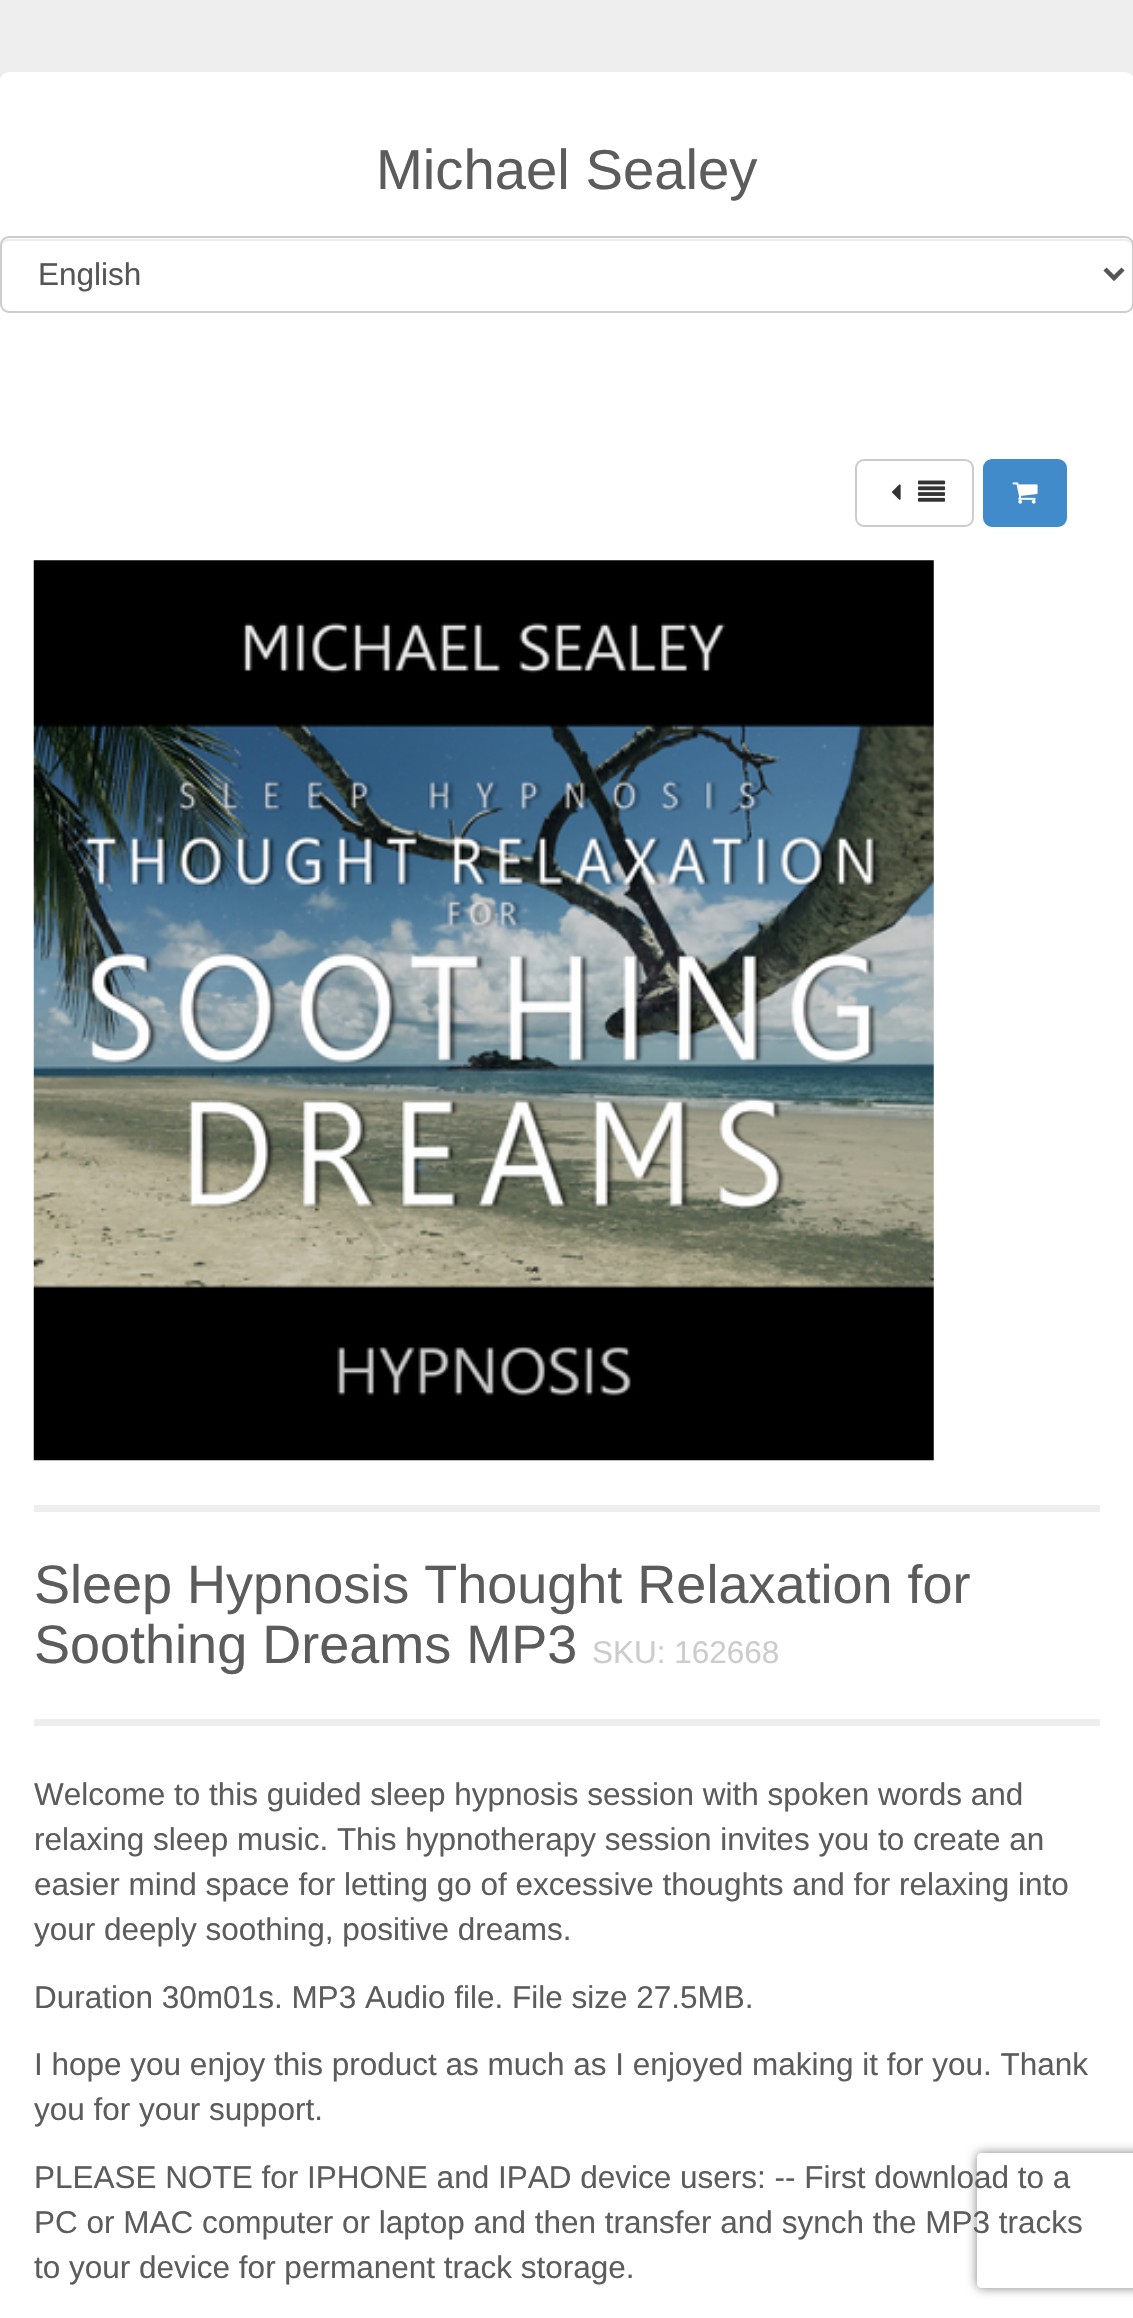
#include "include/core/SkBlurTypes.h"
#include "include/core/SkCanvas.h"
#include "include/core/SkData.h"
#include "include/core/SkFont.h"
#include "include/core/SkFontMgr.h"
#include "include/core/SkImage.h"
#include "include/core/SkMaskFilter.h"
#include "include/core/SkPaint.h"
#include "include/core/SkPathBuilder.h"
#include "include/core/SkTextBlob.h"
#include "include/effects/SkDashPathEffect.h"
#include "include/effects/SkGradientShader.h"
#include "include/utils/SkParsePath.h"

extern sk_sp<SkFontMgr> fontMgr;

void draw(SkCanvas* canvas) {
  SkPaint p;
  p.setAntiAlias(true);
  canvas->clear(SkColorSetRGB(238, 238, 238));
  p.setColor(SK_ColorWHITE);
  canvas->drawRoundRect(SkRect::MakeLTRB(0, 72, 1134, 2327), 9, 9, p);
  p.setColor(SkColorSetRGB(236, 236, 236));
  canvas->drawPath(SkPathBuilder().moveTo(9, 241).lineTo(1125, 241).cubicTo(1129, 241, 1132, 244, 1132, 248).lineTo(1132, 246).cubicTo(1132, 242, 1129, 239, 1125, 239).lineTo(9, 239).cubicTo(5, 239, 2, 242, 2, 246).lineTo(2, 248).cubicTo(2, 244, 5, 241, 9, 241).close().detach(), p);
  p.setStyle(SkPaint::kStroke_Style);
  p.setStrokeWidth(2);
  p.setColor(SkColorSetRGB(204, 204, 204));
  canvas->drawRoundRect(SkRect::MakeLTRB(1, 237, 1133, 312), 8, 8, p);
  p.setStrokeWidth(4.5f);
  p.setColor(SkColorSetRGB(85, 85, 85));
  canvas->drawPath(SkPathBuilder().moveTo(1105, 269).lineTo(1114, 278).lineTo(1123, 269).detach(), p);
  p.setStrokeWidth(2);
  p.setColor(SkColorSetRGB(204, 204, 204));
  canvas->drawRoundRect(SkRect::MakeLTRB(856, 460, 973, 526), 8, 8, p);
  canvas->drawImageRect(SkImages::DeferredFromEncodedData(SkData::MakeFromFileName("images/1.png")), SkRect::MakeLTRB(892, 484, 901, 500), SkSamplingOptions());
  canvas->drawImageRect(SkImages::DeferredFromEncodedData(SkData::MakeFromFileName("images/2.png")), SkRect::MakeLTRB(918, 480, 945, 502), SkSamplingOptions());
  p.setStyle(SkPaint::kFill_Style);
  p.setColor(SkColorSetRGB(66, 139, 202));
  canvas->drawRoundRect(SkRect::MakeLTRB(984, 460, 1066, 526), 8, 8, p);
  p.setStyle(SkPaint::kStroke_Style);
  canvas->drawRoundRect(SkRect::MakeLTRB(984, 460, 1066, 526), 8, 8, p);
  canvas->drawImageRect(SkImages::DeferredFromEncodedData(SkData::MakeFromFileName("images/3.png")), SkRect::MakeLTRB(1012, 482, 1038, 504), SkSamplingOptions());
  canvas->drawImageRect(SkImages::DeferredFromEncodedData(SkData::MakeFromFileName("images/4.png")), SkRect::MakeLTRB(33, 560, 934, 1461), SkSamplingOptions());
  p.setStyle(SkPaint::kFill_Style);
  p.setColor(SkColorSetRGB(238, 238, 238));
  canvas->drawRect(SkRect::MakeLTRB(34, 1505, 1100, 1512), p);
  canvas->drawRect(SkRect::MakeLTRB(34, 1719, 1100, 1726), p);
  canvas->save();
  canvas->clipPath(SkPathBuilder(SkPathFillType::kEvenOdd).moveTo(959, 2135).lineTo(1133, 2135).lineTo(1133, 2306).lineTo(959, 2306).close().moveTo(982, 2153).lineTo(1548, 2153).cubicTo(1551, 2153, 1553, 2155, 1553, 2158).lineTo(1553, 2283).cubicTo(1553, 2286, 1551, 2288, 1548, 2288).lineTo(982, 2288).cubicTo(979, 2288, 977, 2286, 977, 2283).lineTo(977, 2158).cubicTo(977, 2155, 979, 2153, 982, 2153).close().detach(), true);
  p.setColor(SkColorSetRGB(128, 128, 128));
  p.setMaskFilter(SkMaskFilter::MakeBlur(kNormal_SkBlurStyle, 5.5f));
  canvas->drawRoundRect(SkRect::MakeLTRB(977, 2153, 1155, 2288), 5, 5, p);
  p.setMaskFilter(nullptr);
  canvas->restore();
  SkFont font1(fontMgr->matchFamilyStyle("Liberation Sans", SkFontStyle::Normal()), 56.25f);
  font1.setSubpixel(true);
  p.setColor(SkColorSetRGB(92, 92, 92));
  canvas->drawString("Michael Sealey", 376, 189, font1, p);
  SkFont font2(fontMgr->matchFamilyStyle("Liberation Sans", SkFontStyle::Normal()), 31.5f);
  font2.setSubpixel(true);
  p.setColor(SkColorSetRGB(85, 85, 85));
  canvas->drawString("English", 38, 285, font2, p);
  SkFont font3(fontMgr->matchFamilyStyle("Liberation Sans", SkFontStyle::Normal()), 54);
  font3.setSubpixel(true);
  p.setColor(SkColorSetRGB(92, 92, 92));
  canvas->drawString("Sleep Hypnosis Thought Relaxation for", 34, 1603, font3, p);
  canvas->drawString("Soothing Dreams MP3", 34, 1663, font3, p);
  p.setColor(SkColorSetRGB(204, 204, 204));
  canvas->drawString("SKU: 162668", 592, 1663, font2, p);
  p.setColor(SkColorSetRGB(92, 92, 92));
  canvas->drawString("Welcome to this guided sleep hypnosis session with spoken words and", 34, 1805, font2, p);
  canvas->drawString("relaxing sleep music. This hypnotherapy session invites you to create an", 34, 1850, font2, p);
  canvas->drawString("easier mind space for letting go of excessive thoughts and for relaxing into", 34, 1895, font2, p);
  canvas->drawString("your deeply soothing, positive dreams.", 34, 1940, font2, p);
  canvas->drawString("Duration 30m01s. MP3 Audio file. File size 27.5MB.", 34, 2008, font2, p);
  canvas->drawString("I hope you enjoy this product as much as I enjoyed making it for you. Thank", 34, 2075, font2, p);
  canvas->drawString("you for your support.", 34, 2120, font2, p);
  canvas->drawString("PLEASE NOTE for IPHONE and IPAD device users: -- First download to a", 34, 2188, font2, p);
  canvas->drawString("PC or MAC computer or laptop and then transfer and synch the MP3 tracks", 34, 2233, font2, p);
  canvas->drawString("to your device for permanent track storage.", 34, 2278, font2, p);
}
